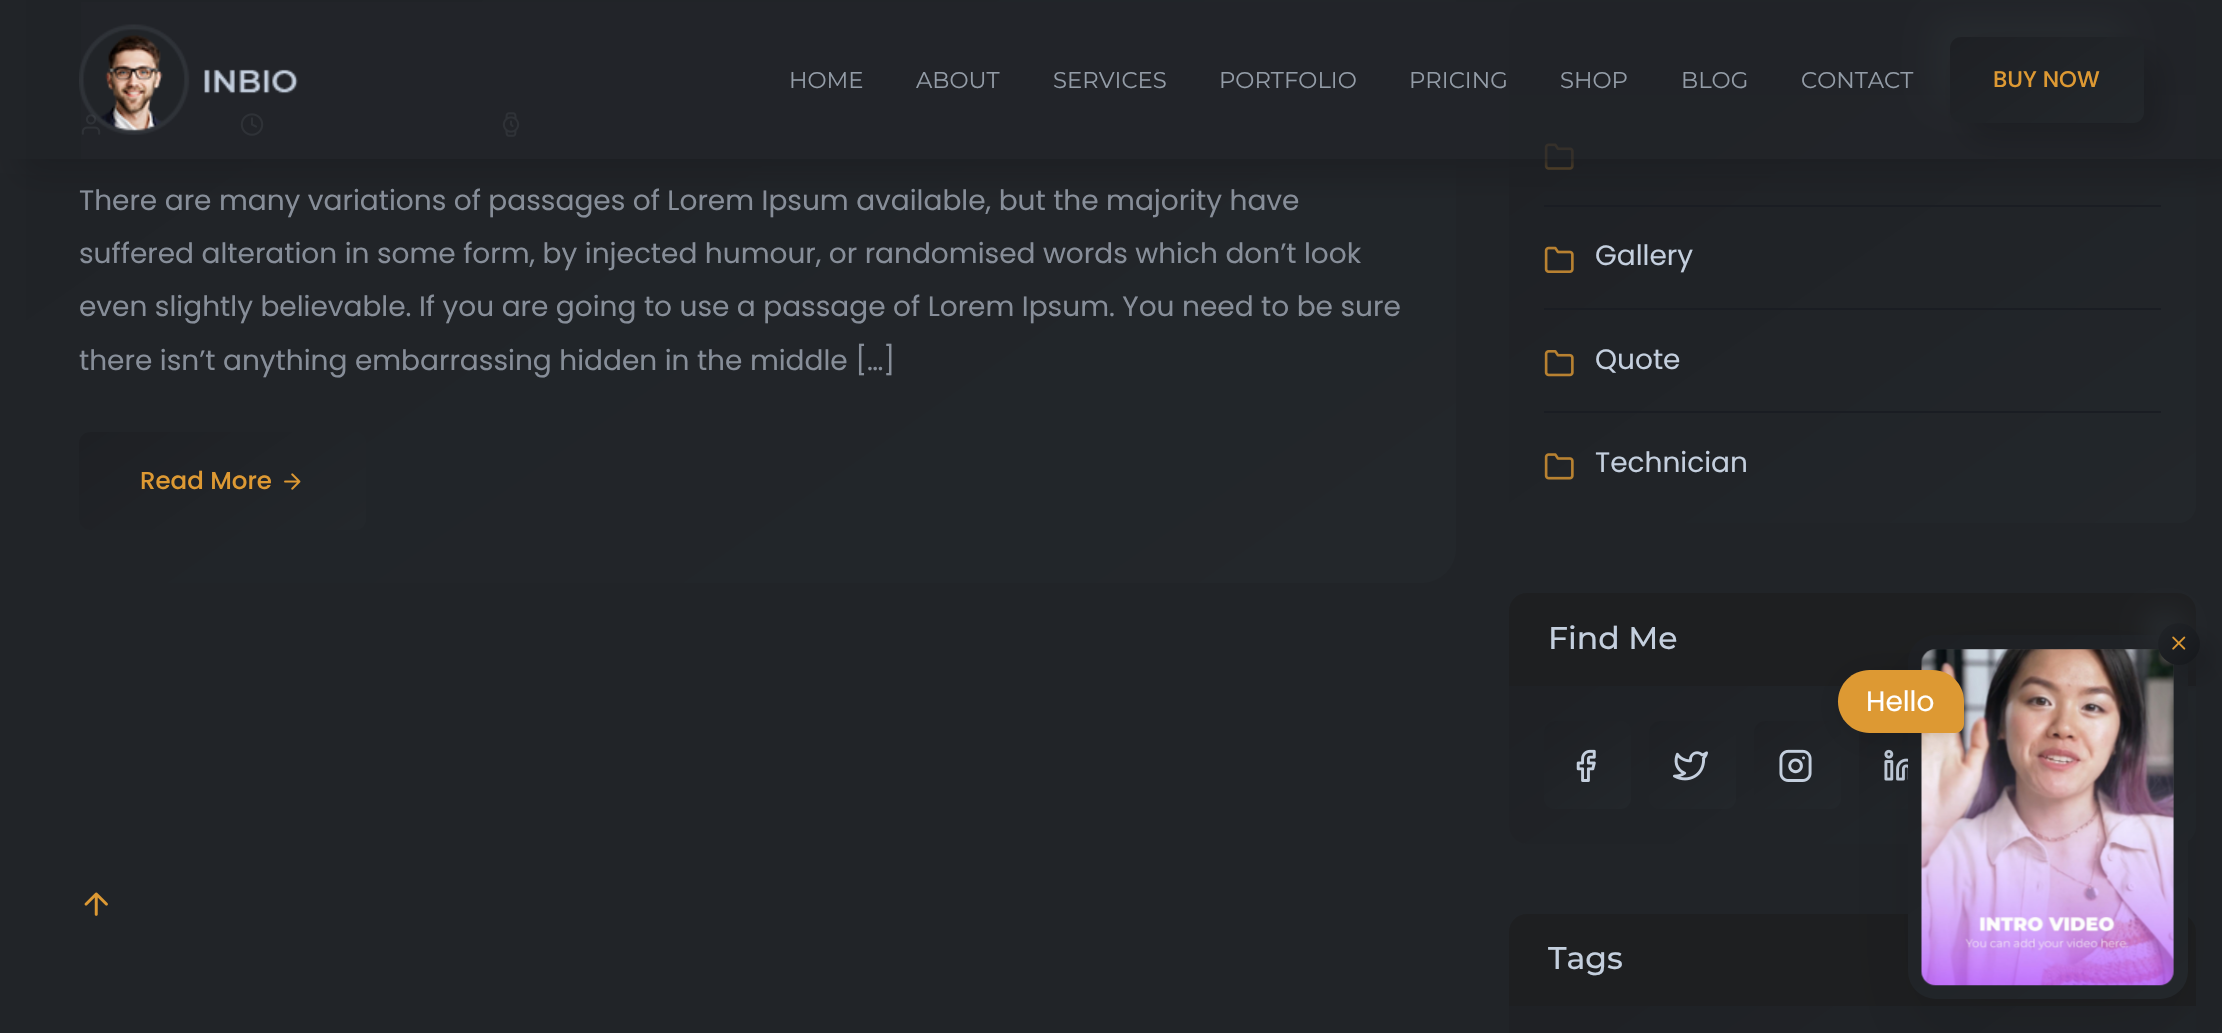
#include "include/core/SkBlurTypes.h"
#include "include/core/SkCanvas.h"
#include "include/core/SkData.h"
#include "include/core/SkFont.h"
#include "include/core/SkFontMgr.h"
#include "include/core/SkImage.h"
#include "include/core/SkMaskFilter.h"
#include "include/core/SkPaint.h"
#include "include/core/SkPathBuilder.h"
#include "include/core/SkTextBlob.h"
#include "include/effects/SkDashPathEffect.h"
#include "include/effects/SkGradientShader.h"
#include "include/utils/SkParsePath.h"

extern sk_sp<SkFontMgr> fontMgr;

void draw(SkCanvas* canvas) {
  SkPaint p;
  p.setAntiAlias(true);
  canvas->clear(SkColorSetRGB(33, 36, 40));
  {
    const SkColor colors[] = {SkColorSetRGB(30, 32, 36), SkColorSetRGB(35, 39, 43)};
    const float stops[] = {0, 1};
    const SkPoint ends[] = {{147, -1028}, {1335, 668}};
    p.setShader(SkGradientShader::MakeLinear(ends, colors, stops, 2, SkTileMode::kClamp));
    p.setAlpha(255);
  }
  canvas->drawRoundRect(SkRect::MakeLTRB(26, -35, 1456, 583), 35, 35, p);
  canvas->drawImageRect(SkImages::DeferredFromEncodedData(SkData::MakeFromFileName("images/2.png")), SkRect::MakeLTRB(81, 114, 101, 135), SkSamplingOptions());
  canvas->drawImageRect(SkImages::DeferredFromEncodedData(SkData::MakeFromFileName("images/3.png")), SkRect::MakeLTRB(240, 113, 264, 136), SkSamplingOptions());
  canvas->drawImageRect(SkImages::DeferredFromEncodedData(SkData::MakeFromFileName("images/4.png")), SkRect::MakeLTRB(502, 112, 520, 137), SkSamplingOptions());
  {
    const SkColor colors[] = {SkColorSetRGB(30, 32, 36), SkColorSetRGB(35, 39, 43)};
    const float stops[] = {0, 1};
    const SkPoint ends[] = {{1617, -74}, {2088, 599}};
    p.setShader(SkGradientShader::MakeLinear(ends, colors, stops, 2, SkTileMode::kClamp));
    p.setAlpha(255);
  }
  canvas->drawRoundRect(SkRect::MakeLTRB(1509, 2, 2196, 523), 18, 18, p);
  p.setShader(nullptr);
  p.setColor(SkColorSetRGB(30, 31, 33));
  canvas->drawPath(SkPathBuilder().moveTo(1527, 2).lineTo(2178, 2).cubicTo(2188, 2, 2196, 10, 2196, 20).lineTo(2196, 95).lineTo(1509, 95).lineTo(1509, 20).cubicTo(1509, 10, 1517, 2, 1527, 2).close().detach(), p);
  canvas->drawImageRect(SkImages::DeferredFromEncodedData(SkData::MakeFromFileName("images/6.png")), SkRect::MakeLTRB(1544, 143, 1574, 170), SkSamplingOptions());
  canvas->save();
  canvas->clipRect(SkRect::MakeLTRB(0, 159, 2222, 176));
  p.setColor(SkColorSetRGB(38, 42, 46));
  p.setMaskFilter(SkMaskFilter::MakeBlur(kNormal_SkBlurStyle, 16.5f));
  canvas->drawRect(SkRect::MakeLTRB(-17, -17, 2205, 142), p);
  p.setMaskFilter(nullptr);
  canvas->restore();
  p.setColor(SkColorSetRGB(26, 29, 35));
  canvas->drawRect(SkRect::MakeLTRB(1544, 205, 2161, 207), p);
  canvas->save();
  canvas->clipRect(SkRect::MakeLTRB(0, 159, 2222, 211));
  p.setColor(SkColorSetRGB(28, 30, 34));
  p.setMaskFilter(SkMaskFilter::MakeBlur(kNormal_SkBlurStyle, 16.5f));
  canvas->drawRect(SkRect::MakeLTRB(18, 18, 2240, 177), p);
  p.setMaskFilter(nullptr);
  canvas->restore();
  p.setColor(SkColorSetARGB(222, 33, 36, 40));
  canvas->drawRect(SkRect::MakeLTRB(81, 2, 2196, 159), p);
  canvas->drawImageRect(SkImages::DeferredFromEncodedData(SkData::MakeFromFileName("images/1.png")), SkRect::MakeLTRB(79, 24, 298, 135), SkSamplingOptions());
  p.setColor(SkColorSetRGB(38, 42, 46));
  p.setMaskFilter(SkMaskFilter::MakeBlur(kNormal_SkBlurStyle, 16.5f));
  canvas->drawRoundRect(SkRect::MakeLTRB(1932, 19, 2126, 105), 11, 11, p);
  p.setMaskFilter(nullptr);
  p.setColor(SkColorSetRGB(28, 30, 34));
  p.setMaskFilter(SkMaskFilter::MakeBlur(kNormal_SkBlurStyle, 16.5f));
  canvas->drawRoundRect(SkRect::MakeLTRB(1967, 54, 2161, 140), 11, 11, p);
  p.setMaskFilter(nullptr);
  {
    const SkColor colors[] = {SkColorSetRGB(30, 32, 36), SkColorSetRGB(35, 39, 43)};
    const float stops[] = {0, 1};
    const SkPoint ends[] = {{1995, 5.2f}, {2099, 154}};
    p.setShader(SkGradientShader::MakeLinear(ends, colors, stops, 2, SkTileMode::kClamp));
    p.setAlpha(255);
  }
  canvas->drawRoundRect(SkRect::MakeLTRB(1950, 37, 2144, 123), 11, 11, p);
  {
    const SkColor colors[] = {SkColorSetRGB(30, 32, 36), SkColorSetRGB(35, 39, 43)};
    const float stops[] = {0, 1};
    const SkPoint ends[] = {{152, 381}, {292, 582}};
    p.setShader(SkGradientShader::MakeLinear(ends, colors, stops, 2, SkTileMode::kClamp));
    p.setAlpha(255);
  }
  canvas->drawRoundRect(SkRect::MakeLTRB(79, 432, 366, 530), 11, 11, p);
  canvas->drawImageRect(SkImages::DeferredFromEncodedData(SkData::MakeFromFileName("images/5.png")), SkRect::MakeLTRB(284, 473, 301, 490), SkSamplingOptions());
  canvas->drawImageRect(SkImages::DeferredFromEncodedData(SkData::MakeFromFileName("images/7.png")), SkRect::MakeLTRB(1544, 246, 1574, 273), SkSamplingOptions());
  p.setShader(nullptr);
  p.setColor(SkColorSetRGB(26, 29, 35));
  canvas->drawRect(SkRect::MakeLTRB(1544, 308, 2161, 310), p);
  canvas->drawImageRect(SkImages::DeferredFromEncodedData(SkData::MakeFromFileName("images/8.png")), SkRect::MakeLTRB(1544, 350, 1574, 377), SkSamplingOptions());
  canvas->drawRect(SkRect::MakeLTRB(1544, 411, 2161, 413), p);
  canvas->drawImageRect(SkImages::DeferredFromEncodedData(SkData::MakeFromFileName("images/9.png")), SkRect::MakeLTRB(1544, 453, 1574, 480), SkSamplingOptions());
  {
    const SkColor colors[] = {SkColorSetRGB(30, 32, 36), SkColorSetRGB(35, 39, 43)};
    const float stops[] = {0, 1};
    const SkPoint ends[] = {{1680, 473}, {2024, 964}};
    p.setShader(SkGradientShader::MakeLinear(ends, colors, stops, 2, SkTileMode::kClamp));
    p.setAlpha(255);
  }
  canvas->drawRoundRect(SkRect::MakeLTRB(1509, 593, 2196, 844), 18, 18, p);
  p.setShader(nullptr);
  p.setColor(SkColorSetRGB(30, 31, 33));
  canvas->drawPath(SkPathBuilder().moveTo(1527, 593).lineTo(2178, 593).cubicTo(2188, 593, 2196, 601, 2196, 611).lineTo(2196, 686).lineTo(1509, 686).lineTo(1509, 611).cubicTo(1509, 601, 1517, 593, 1527, 593).close().detach(), p);
  {
    const SkColor colors[] = {SkColorSetRGB(30, 32, 36), SkColorSetRGB(35, 39, 43)};
    const float stops[] = {0, 1};
    const SkPoint ends[] = {{1552, 715}, {1622, 815}};
    p.setShader(SkGradientShader::MakeLinear(ends, colors, stops, 2, SkTileMode::kClamp));
    p.setAlpha(255);
  }
  canvas->drawRoundRect(SkRect::MakeLTRB(1544, 721, 1631, 809), 11, 11, p);
  canvas->drawImageRect(SkImages::DeferredFromEncodedData(SkData::MakeFromFileName("images/10.png")), SkRect::MakeLTRB(1576, 749, 1596, 782), SkSamplingOptions());
  {
    const SkColor colors[] = {SkColorSetRGB(30, 32, 36), SkColorSetRGB(35, 39, 43)};
    const float stops[] = {0, 1};
    const SkPoint ends[] = {{1657, 715}, {1727, 815}};
    p.setShader(SkGradientShader::MakeLinear(ends, colors, stops, 2, SkTileMode::kClamp));
    p.setAlpha(255);
  }
  canvas->drawRoundRect(SkRect::MakeLTRB(1649, 721, 1736, 809), 11, 11, p);
  canvas->drawImageRect(SkImages::DeferredFromEncodedData(SkData::MakeFromFileName("images/11.png")), SkRect::MakeLTRB(1673, 751, 1708, 781), SkSamplingOptions());
  {
    const SkColor colors[] = {SkColorSetRGB(30, 32, 36), SkColorSetRGB(35, 39, 43)};
    const float stops[] = {0, 1};
    const SkPoint ends[] = {{1762, 715}, {1832, 815}};
    p.setShader(SkGradientShader::MakeLinear(ends, colors, stops, 2, SkTileMode::kClamp));
    p.setAlpha(255);
  }
  canvas->drawRoundRect(SkRect::MakeLTRB(1754, 721, 1841, 809), 11, 11, p);
  canvas->drawImageRect(SkImages::DeferredFromEncodedData(SkData::MakeFromFileName("images/12.png")), SkRect::MakeLTRB(1779, 749, 1812, 782), SkSamplingOptions());
  {
    const SkColor colors[] = {SkColorSetRGB(30, 32, 36), SkColorSetRGB(35, 39, 43)};
    const float stops[] = {0, 1};
    const SkPoint ends[] = {{1867, 715}, {1937, 815}};
    p.setShader(SkGradientShader::MakeLinear(ends, colors, stops, 2, SkTileMode::kClamp));
    p.setAlpha(255);
  }
  canvas->drawRoundRect(SkRect::MakeLTRB(1859, 721, 1946, 809), 11, 11, p);
  canvas->drawImageRect(SkImages::DeferredFromEncodedData(SkData::MakeFromFileName("images/13.png")), SkRect::MakeLTRB(1884, 749, 1908, 781), SkSamplingOptions());
  {
    const SkColor colors[] = {SkColorSetRGB(30, 32, 36), SkColorSetRGB(35, 39, 43)};
    const float stops[] = {0, 1};
    const SkPoint ends[] = {{1641, 820}, {2063, 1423}};
    p.setShader(SkGradientShader::MakeLinear(ends, colors, stops, 2, SkTileMode::kClamp));
    p.setAlpha(255);
  }
  canvas->drawRoundRect(SkRect::MakeLTRB(1509, 914, 2196, 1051), 18, 18, p);
  p.setShader(nullptr);
  p.setColor(SkColorSetRGB(30, 31, 33));
  canvas->drawPath(SkPathBuilder().moveTo(1527, 914).lineTo(2178, 914).cubicTo(2188, 914, 2196, 922, 2196, 932).lineTo(2196, 1006).lineTo(1509, 1006).lineTo(1509, 932).cubicTo(1509, 922, 1517, 914, 1527, 914).close().detach(), p);
  p.setColor(SkColorSetARGB(26, 0, 0, 0));
  p.setMaskFilter(SkMaskFilter::MakeBlur(kNormal_SkBlurStyle, 42));
  canvas->drawRoundRect(SkRect::MakeLTRB(1908, 670, 2188, 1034), 28, 28, p);
  p.setMaskFilter(nullptr);
  {
    const SkColor colors[] = {SkColorSetRGB(30, 32, 36), SkColorSetRGB(35, 39, 43)};
    const float stops[] = {0, 1};
    const SkPoint ends[] = {{1916, 629}, {2179, 1005}};
    p.setShader(SkGradientShader::MakeLinear(ends, colors, stops, 2, SkTileMode::kClamp));
    p.setAlpha(255);
  }
  canvas->drawRoundRect(SkRect::MakeLTRB(1908, 635, 2188, 999), 28, 28, p);
  p.setShader(nullptr);
  p.setColor(SkColorSetARGB(26, 255, 255, 255));
  canvas->drawRoundRect(SkRect::MakeLTRB(1922, 649, 2174, 985), 14, 14, p);
  canvas->drawImageRect(SkImages::DeferredFromEncodedData(SkData::MakeFromFileName("images/14.png")), SkRect::MakeLTRB(1921, 649, 2174, 986), SkSamplingOptions());
  p.setColor(SkColorSetARGB(38, 0, 0, 0));
  p.setMaskFilter(SkMaskFilter::MakeBlur(kNormal_SkBlurStyle, 17.5f));
  canvas->drawRoundRect(SkRect::MakeLTRB(1841, 674, 1967, 737), 31.5f, 31.5f, p);
  p.setMaskFilter(nullptr);
  p.setColor(SkColorSetRGB(221, 153, 51));
  canvas->drawPath(SkPathBuilder().moveTo(1869.5f, 670).lineTo(1932.5f, 670).cubicTo(1950, 670, 1964, 684, 1964, 701.5f).lineTo(1964, 724).cubicTo(1964, 729, 1960, 733, 1955, 733).lineTo(1869.5f, 733).cubicTo(1852, 733, 1838, 719, 1838, 701.5f).cubicTo(1838, 684, 1852, 670, 1869.5f, 670).close().detach(), p);
  p.setColor(SkColorSetRGB(38, 42, 46));
  p.setMaskFilter(SkMaskFilter::MakeBlur(kNormal_SkBlurStyle, 13.5f));
  canvas->drawRoundRect(SkRect::MakeLTRB(2144, 609, 2186, 651), 21, 21, p);
  p.setMaskFilter(nullptr);
  p.setColor(SkColorSetRGB(28, 30, 34));
  p.setMaskFilter(SkMaskFilter::MakeBlur(kNormal_SkBlurStyle, 13.5f));
  canvas->drawRoundRect(SkRect::MakeLTRB(2172, 637, 2214, 679), 21, 21, p);
  p.setMaskFilter(nullptr);
  {
    const SkColor colors[] = {SkColorSetRGB(33, 36, 40), SkColorSetRGB(22, 24, 28)};
    const float stops[] = {0, 1};
    const SkPoint ends[] = {{2158, 623}, {2200, 665}};
    p.setShader(SkGradientShader::MakeLinear(ends, colors, stops, 2, SkTileMode::kClamp));
    p.setAlpha(255);
  }
  canvas->drawCircle(2179, 644, 21, p);
  canvas->drawImageRect(SkImages::DeferredFromEncodedData(SkData::MakeFromFileName("images/15.png")), SkRect::MakeLTRB(2172, 636, 2186, 650), SkSamplingOptions());
  canvas->drawImageRect(SkImages::DeferredFromEncodedData(SkData::MakeFromFileName("images/16.png")), SkRect::MakeLTRB(84, 892, 108, 916), SkSamplingOptions());
  SkFont font1(fontMgr->matchFamilyStyle("Montserrat", SkFontStyle::Normal()), 22.75f);
  font1.setSubpixel(true);
  p.setShader(nullptr);
  p.setColor(SkColorSetRGB(147, 156, 167));
  canvas->drawString("HOME", 789, 88, font1, p);
  canvas->drawString("ABOUT", 916, 88, font1, p);
  canvas->drawString("SERVICES", 1053, 88, font1, p);
  canvas->drawString("PORTFOLIO", 1219, 88, font1, p);
  canvas->drawString("PRICING", 1409, 88, font1, p);
  canvas->drawString("SHOP", 1560, 88, font1, p);
  canvas->drawString("BLOG", 1681, 88, font1, p);
  canvas->drawString("CONTACT", 1801, 88, font1, p);
  SkFont font2(fontMgr->matchFamilyStyle("Poppins", SkFontStyle(500, SkFontStyle::kNormal_Width, SkFontStyle::kUpright_Slant)), 22.75f);
  font2.setSubpixel(true);
  p.setColor(SkColorSetRGB(221, 153, 51));
  canvas->drawString("BUY NOW", 1993, 87, font2, p);
  SkFont font3(fontMgr->matchFamilyStyle("Poppins", SkFontStyle::Normal()), 28);
  font3.setSubpixel(true);
  p.setColor(SkColorSetRGB(135, 142, 153));
  canvas->drawString("There are many variations of passages of Lorem Ipsum available, but the majority have", 79, 210, font3, p);
  canvas->drawString("suffered alteration in some form, by injected humour, or randomised words which don’t look", 79, 263, font3, p);
  canvas->drawString("even slightly believable. If you are going to use a passage of Lorem Ipsum. You need to be sure", 79, 316, font3, p);
  canvas->drawString("there isn’t anything embarrassing hidden in the middle […]", 79, 370, font3, p);
  SkFont font4(fontMgr->matchFamilyStyle("Poppins", SkFontStyle(500, SkFontStyle::kNormal_Width, SkFontStyle::kUpright_Slant)), 24.5f);
  font4.setSubpixel(true);
  p.setColor(SkColorSetRGB(221, 153, 51));
  canvas->drawString("Read More", 140, 489, font4, p);
  p.setColor(SkColorSetRGB(196, 207, 222));
  canvas->drawString("Gallery", 1595, 265, font3, p);
  canvas->drawString("Quote", 1595, 369, font3, p);
  canvas->drawString("Technician", 1595, 472, font3, p);
  SkFont font5(fontMgr->matchFamilyStyle("Montserrat", SkFontStyle(500, SkFontStyle::kNormal_Width, SkFontStyle::kUpright_Slant)), 31.5f);
  font5.setSubpixel(true);
  canvas->drawString("Find Me", 1548, 649, font5, p);
  canvas->drawString("Tags", 1548, 969, font5, p);
  p.setColor(SK_ColorWHITE);
  canvas->drawString("Hello", 1866, 711, font3, p);
}
